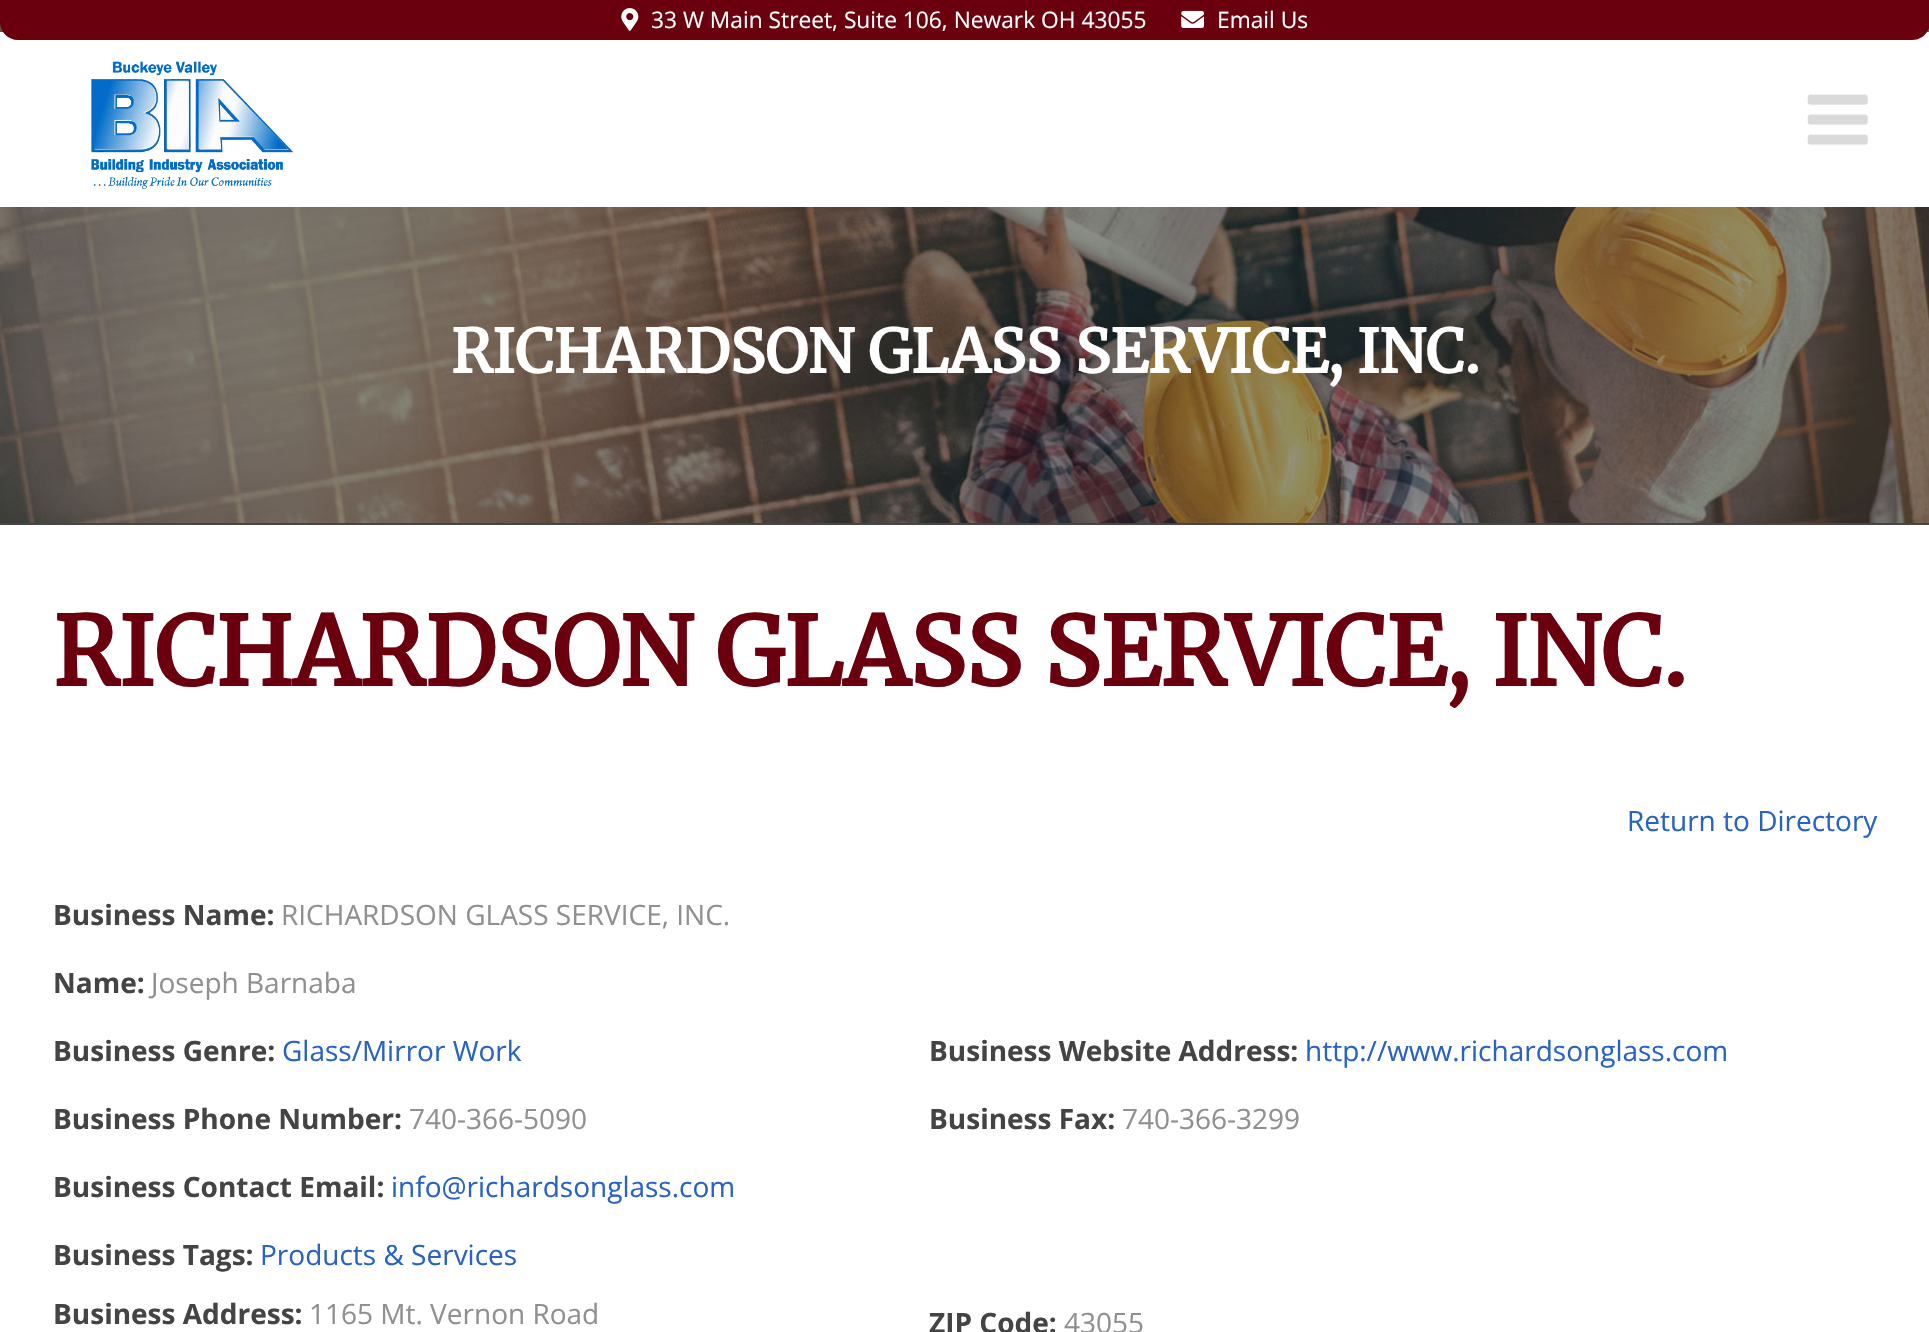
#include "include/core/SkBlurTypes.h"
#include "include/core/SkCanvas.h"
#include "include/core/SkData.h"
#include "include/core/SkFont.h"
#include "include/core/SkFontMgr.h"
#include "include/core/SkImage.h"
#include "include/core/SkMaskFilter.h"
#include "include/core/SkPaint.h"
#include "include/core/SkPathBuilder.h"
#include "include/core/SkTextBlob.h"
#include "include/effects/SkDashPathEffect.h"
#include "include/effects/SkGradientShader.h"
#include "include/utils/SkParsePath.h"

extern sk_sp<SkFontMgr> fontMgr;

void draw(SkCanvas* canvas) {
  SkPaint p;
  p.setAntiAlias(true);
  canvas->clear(SK_ColorWHITE);
  canvas->drawImageRect(SkImages::DeferredFromEncodedData(SkData::MakeFromFileName("images/5.png")), SkRect::MakeLTRB(0, 22, 1929, 523), SkSamplingOptions());
  p.setColor(SK_ColorWHITE);
  canvas->drawRect(SkRect::MakeLTRB(0, 32, 1929, 207), p);
  p.setColor(SkColorSetRGB(106, 0, 14));
  canvas->drawPath(SkPathBuilder().moveTo(0, 0).lineTo(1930, 0).lineTo(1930, 22).cubicTo(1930, 32, 1922, 40, 1912, 40).lineTo(18, 40).cubicTo(8, 40, 0, 32, 0, 22).close().detach(), p);
  canvas->drawImageRect(SkImages::DeferredFromEncodedData(SkData::MakeFromFileName("images/1.png")), SkRect::MakeLTRB(621, 8, 639, 31), SkSamplingOptions());
  canvas->drawImageRect(SkImages::DeferredFromEncodedData(SkData::MakeFromFileName("images/2.png")), SkRect::MakeLTRB(1181, 10, 1204, 28), SkSamplingOptions());
  canvas->drawImageRect(SkImages::DeferredFromEncodedData(SkData::MakeFromFileName("images/3.png")), SkRect::MakeLTRB(91, 61, 294, 189), SkSamplingOptions());
  canvas->drawImageRect(SkImages::DeferredFromEncodedData(SkData::MakeFromFileName("images/4.png")), SkRect::MakeLTRB(1807, 94, 1868, 145), SkSamplingOptions());
  p.setColor(SkColorSetRGB(70, 70, 70));
  canvas->drawRect(SkRect::MakeLTRB(0, 523, 1929, 525), p);
  SkFont font1(fontMgr->matchFamilyStyle("Open Sans", SkFontStyle::Normal()), 22.75f);
  font1.setSubpixel(true);
  p.setColor(SK_ColorWHITE);
  canvas->drawString("33 W Main Street, Suite 106, Newark OH 43055", 651, 28, font1, p);
  canvas->drawString("Email Us", 1217, 28, font1, p);
  SkFont font2(fontMgr->matchFamilyStyle("Merriweather", SkFontStyle::Bold()), 59.5f);
  font2.setSubpixel(true);
  canvas->drawString("RICHARDSON GLASS SERVICE, INC.", 451, 373, font2, p);
  SkFont font3(fontMgr->matchFamilyStyle("Merriweather", SkFontStyle::Bold()), 94.5f);
  font3.setSubpixel(true);
  p.setColor(SkColorSetRGB(106, 0, 14));
  canvas->drawString("RICHARDSON GLASS SERVICE, INC.", 53, 686, font3, p);
  SkFont font4(fontMgr->matchFamilyStyle("Open Sans", SkFontStyle::Normal()), 28);
  font4.setSubpixel(true);
  p.setColor(SkColorSetRGB(40, 98, 197));
  canvas->drawString("Return to Directory", 1627, 831, font4, p);
  SkFont font5(fontMgr->matchFamilyStyle("Open Sans", SkFontStyle::Bold()), 28);
  font5.setSubpixel(true);
  p.setColor(SkColorSetRGB(68, 68, 68));
  canvas->drawString("Business Name:", 53, 925, font5, p);
  p.setColor(SkColorSetRGB(145, 143, 143));
  canvas->drawString("RICHARDSON GLASS SERVICE, INC.", 281, 925, font4, p);
  p.setColor(SkColorSetRGB(68, 68, 68));
  canvas->drawString("Name:", 53, 993, font5, p);
  p.setColor(SkColorSetRGB(145, 143, 143));
  canvas->drawString("Joseph Barnaba", 151, 993, font4, p);
  p.setColor(SkColorSetRGB(68, 68, 68));
  canvas->drawString("Business Genre:", 53, 1061, font5, p);
  p.setColor(SkColorSetRGB(40, 98, 197));
  canvas->drawString("Glass/Mirror Work", 282, 1061, font4, p);
  p.setColor(SkColorSetRGB(68, 68, 68));
  canvas->drawString("Business Website Address:", 929, 1061, font5, p);
  p.setColor(SkColorSetRGB(40, 98, 197));
  canvas->drawString("http://www.richardsonglass.com", 1305, 1061, font4, p);
  p.setColor(SkColorSetRGB(68, 68, 68));
  canvas->drawString("Business Phone Number:", 53, 1129, font5, p);
  p.setColor(SkColorSetRGB(145, 143, 143));
  canvas->drawString("740-366-5090", 409, 1129, font4, p);
  p.setColor(SkColorSetRGB(68, 68, 68));
  canvas->drawString("Business Fax:", 929, 1129, font5, p);
  p.setColor(SkColorSetRGB(145, 143, 143));
  canvas->drawString("740-366-3299", 1122, 1129, font4, p);
  p.setColor(SkColorSetRGB(68, 68, 68));
  canvas->drawString("Business Contact Email:", 53, 1197, font5, p);
  p.setColor(SkColorSetRGB(40, 98, 197));
  canvas->drawString("info@richardsonglass.com", 391, 1197, font4, p);
  p.setColor(SkColorSetRGB(68, 68, 68));
  canvas->drawString("Business Tags:", 53, 1265, font5, p);
  p.setColor(SkColorSetRGB(40, 98, 197));
  canvas->drawString("Products & Services", 260, 1265, font4, p);
  p.setColor(SkColorSetRGB(68, 68, 68));
  canvas->drawString("Business Address:", 53, 1324, font5, p);
  p.setColor(SkColorSetRGB(145, 143, 143));
  canvas->drawString("1165 Mt. Vernon Road", 309, 1324, font4, p);
  p.setColor(SkColorSetRGB(68, 68, 68));
  canvas->drawString("ZIP Code:", 929, 1333, font5, p);
  p.setColor(SkColorSetRGB(145, 143, 143));
  canvas->drawString("43055", 1064, 1333, font4, p);
}
